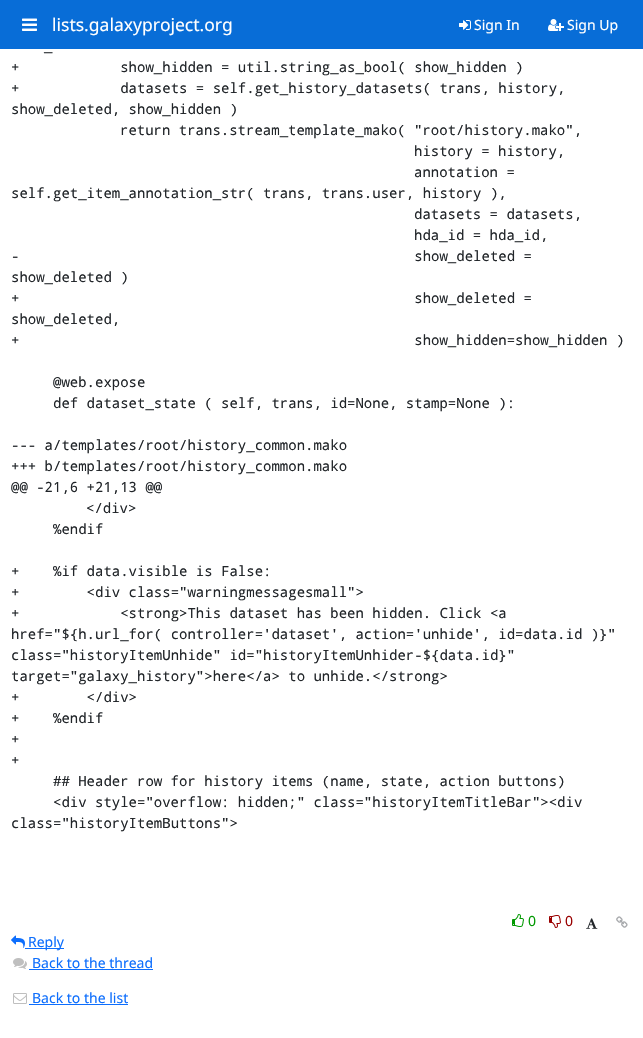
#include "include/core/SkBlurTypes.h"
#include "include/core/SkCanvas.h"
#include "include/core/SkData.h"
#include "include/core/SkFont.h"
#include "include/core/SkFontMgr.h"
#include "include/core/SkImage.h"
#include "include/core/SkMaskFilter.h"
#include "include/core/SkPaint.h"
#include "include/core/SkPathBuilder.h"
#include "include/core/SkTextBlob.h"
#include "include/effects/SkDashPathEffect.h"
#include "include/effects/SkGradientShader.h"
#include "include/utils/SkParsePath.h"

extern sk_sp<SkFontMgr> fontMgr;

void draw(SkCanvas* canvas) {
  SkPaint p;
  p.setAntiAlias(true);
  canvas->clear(SK_ColorWHITE);
  p.setColor(SkColorSetRGB(8, 109, 215));
  canvas->drawRect(SkRect::MakeLTRB(0, 0, 643, 49), p);
  canvas->drawImageRect(SkImages::DeferredFromEncodedData(SkData::MakeFromFileName("images/1.png")), SkRect::MakeLTRB(22, 18, 37, 31), SkSamplingOptions());
  canvas->drawImageRect(SkImages::DeferredFromEncodedData(SkData::MakeFromFileName("images/2.png")), SkRect::MakeLTRB(459, 20, 471, 30), SkSamplingOptions());
  canvas->drawImageRect(SkImages::DeferredFromEncodedData(SkData::MakeFromFileName("images/3.png")), SkRect::MakeLTRB(548, 19, 564, 31), SkSamplingOptions());
  canvas->drawImageRect(SkImages::DeferredFromEncodedData(SkData::MakeFromFileName("images/4.png")), SkRect::MakeLTRB(512, 914, 524, 927), SkSamplingOptions());
  canvas->drawImageRect(SkImages::DeferredFromEncodedData(SkData::MakeFromFileName("images/5.png")), SkRect::MakeLTRB(549, 915, 561, 928), SkSamplingOptions());
  canvas->drawImageRect(SkImages::DeferredFromEncodedData(SkData::MakeFromFileName("images/6.png")), SkRect::MakeLTRB(586, 918, 598, 929), SkSamplingOptions());
  canvas->drawImageRect(SkImages::DeferredFromEncodedData(SkData::MakeFromFileName("images/7.png")), SkRect::MakeLTRB(616, 916, 628, 928), SkSamplingOptions());
  canvas->drawImageRect(SkImages::DeferredFromEncodedData(SkData::MakeFromFileName("images/8.png")), SkRect::MakeLTRB(11, 935, 25, 948), SkSamplingOptions());
  p.setColor(SkColorSetRGB(13, 110, 253));
  canvas->drawRect(SkRect::MakeLTRB(25, 948, 64, 949), p);
  canvas->drawImageRect(SkImages::DeferredFromEncodedData(SkData::MakeFromFileName("images/9.png")), SkRect::MakeLTRB(13, 958, 27, 969), SkSamplingOptions());
  canvas->drawRect(SkRect::MakeLTRB(29, 969, 153, 970), p);
  canvas->drawImageRect(SkImages::DeferredFromEncodedData(SkData::MakeFromFileName("images/10.png")), SkRect::MakeLTRB(13, 993, 27, 1004), SkSamplingOptions());
  canvas->drawRect(SkRect::MakeLTRB(29, 1004, 128, 1005), p);
  SkFont font1(fontMgr->matchFamilyStyle("Noto Sans", SkFontStyle::Normal()), 17.5f);
  font1.setSubpixel(true);
  p.setColor(SK_ColorWHITE);
  canvas->drawString("lists.galaxyproject.org", 52, 31, font1, p);
  SkFont font2(fontMgr->matchFamilyStyle("Noto Sans", SkFontStyle::Normal()), 14);
  font2.setSubpixel(true);
  canvas->drawString("Sign In", 474, 30, font2, p);
  canvas->drawString("Sign Up", 567, 30, font2, p);
  SkFont font3(fontMgr->matchFamilyStyle("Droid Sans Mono", SkFontStyle::Normal()), 14);
  font3.setSubpixel(true);
  p.setColor(SkColorSetRGB(33, 37, 41));
  canvas->drawString("_", 44, 51, font3, p);
  canvas->drawString("+            show_hidden = util.string_as_bool( show_hidden )", 11, 72, font3, p);
  canvas->drawString("+            datasets = self.get_history_datasets( trans, history,", 11, 93, font3, p);
  canvas->drawString("show_deleted, show_hidden )", 11, 114, font3, p);
  canvas->drawString("return trans.stream_template_mako( \"root/history.mako\",", 120, 135, font3, p);
  canvas->drawString("history = history,", 414, 156, font3, p);
  canvas->drawString("annotation =", 414, 177, font3, p);
  canvas->drawString("self.get_item_annotation_str( trans, trans.user, history ),", 11, 198, font3, p);
  canvas->drawString("datasets = datasets,", 414, 219, font3, p);
  canvas->drawString("hda_id = hda_id,", 414, 240, font3, p);
  canvas->drawString("-                                               show_deleted =", 11, 261, font3, p);
  canvas->drawString("show_deleted )", 11, 282, font3, p);
  canvas->drawString("+                                               show_deleted =", 11, 303, font3, p);
  canvas->drawString("show_deleted,", 11, 324, font3, p);
  canvas->drawString("+                                               show_hidden=show_hidden )", 11, 345, font3, p);
  canvas->drawString("@web.expose", 53, 387, font3, p);
  canvas->drawString("def dataset_state ( self, trans, id=None, stamp=None ):", 53, 408, font3, p);
  canvas->drawString("--- a/templates/root/history_common.mako", 11, 450, font3, p);
  canvas->drawString("+++ b/templates/root/history_common.mako", 11, 471, font3, p);
  canvas->drawString("@@ -21,6 +21,13 @@", 11, 492, font3, p);
  canvas->drawString("</div>", 86, 513, font3, p);
  canvas->drawString("%endif", 53, 534, font3, p);
  canvas->drawString("+    %if data.visible is False:", 11, 576, font3, p);
  canvas->drawString("+        <div class=\"warningmessagesmall\">", 11, 597, font3, p);
  canvas->drawString("+            <strong>This dataset has been hidden. Click <a", 11, 618, font3, p);
  canvas->drawString("href=\"${h.url_for( controller='dataset', action='unhide', id=data.id )}\"", 11, 639, font3, p);
  canvas->drawString("class=\"historyItemUnhide\" id=\"historyItemUnhider-${data.id}\"", 11, 660, font3, p);
  canvas->drawString("target=\"galaxy_history\">here</a> to unhide.</strong>", 11, 681, font3, p);
  canvas->drawString("+        </div>", 11, 702, font3, p);
  canvas->drawString("+    %endif", 11, 723, font3, p);
  canvas->drawString("+", 11, 744, font3, p);
  canvas->drawString("+", 11, 765, font3, p);
  canvas->drawString("## Header row for history items (name, state, action buttons)", 53, 786, font3, p);
  canvas->drawString("<div style=\"overflow: hidden;\" class=\"historyItemTitleBar\"><div", 53, 807, font3, p);
  canvas->drawString("class=\"historyItemButtons\">", 11, 828, font3, p);
  p.setColor(SkColorSetRGB(0, 153, 0));
  canvas->drawString("0", 528, 926, font2, p);
  p.setColor(SkColorSetRGB(153, 0, 0));
  canvas->drawString("0", 565, 926, font2, p);
  p.setColor(SkColorSetRGB(13, 110, 253));
  canvas->drawString("Reply", 28, 947, font2, p);
  canvas->drawString("Back to the thread", 32, 968, font2, p);
  canvas->drawString("Back to the list", 32, 1003, font2, p);
}
